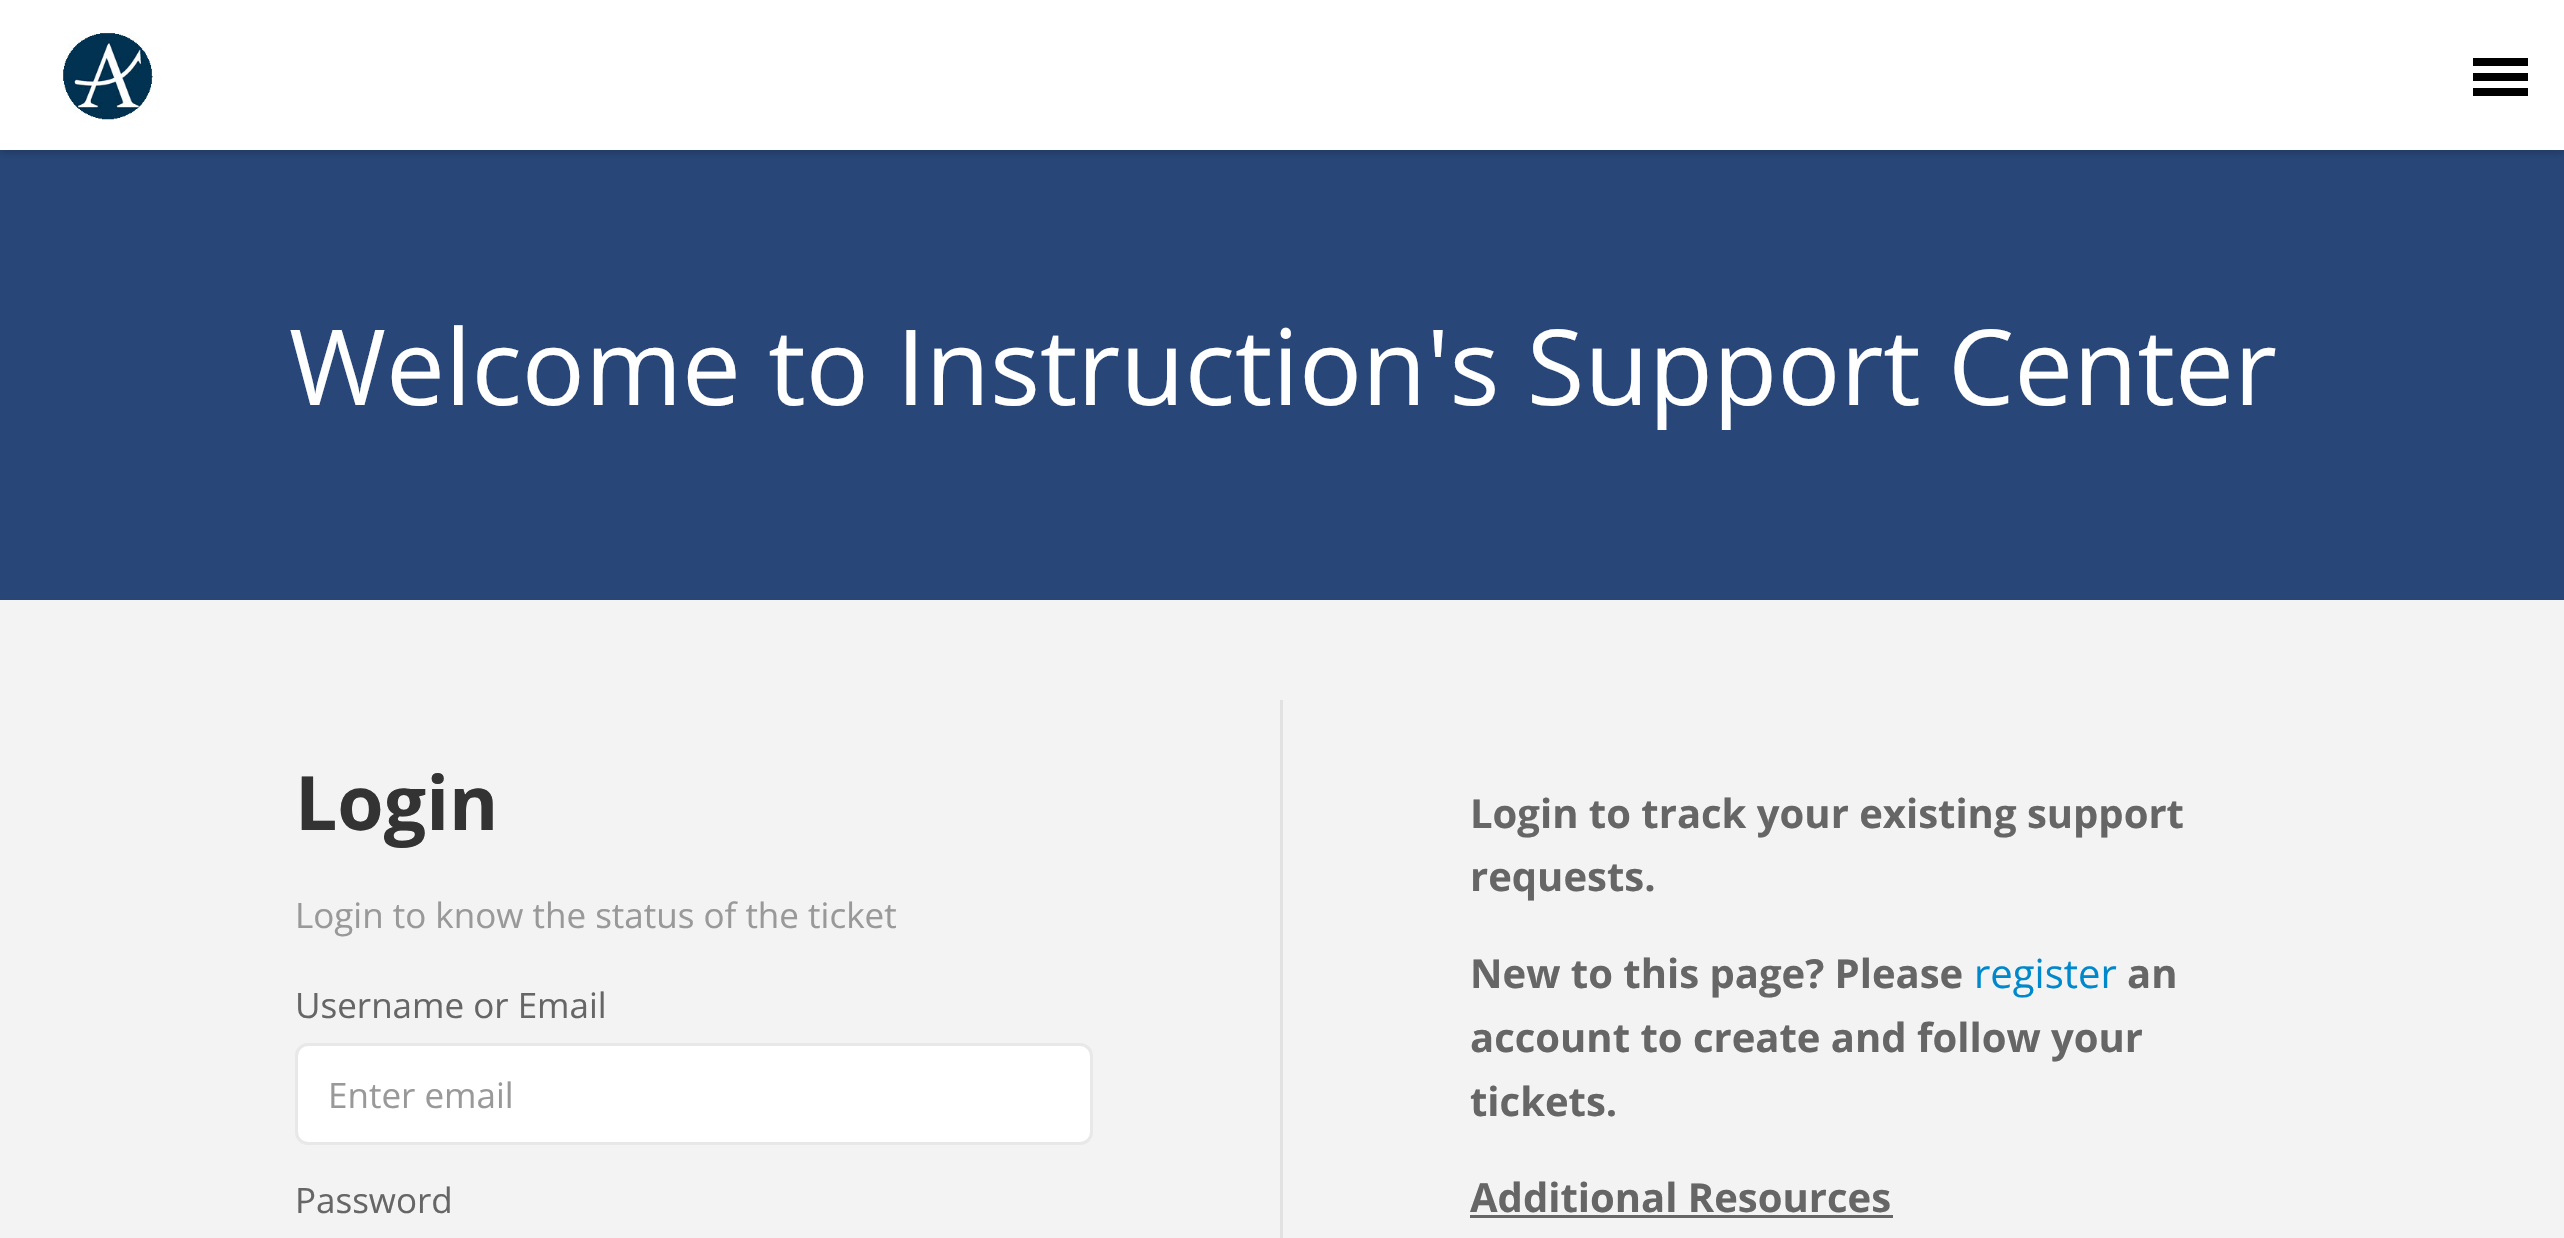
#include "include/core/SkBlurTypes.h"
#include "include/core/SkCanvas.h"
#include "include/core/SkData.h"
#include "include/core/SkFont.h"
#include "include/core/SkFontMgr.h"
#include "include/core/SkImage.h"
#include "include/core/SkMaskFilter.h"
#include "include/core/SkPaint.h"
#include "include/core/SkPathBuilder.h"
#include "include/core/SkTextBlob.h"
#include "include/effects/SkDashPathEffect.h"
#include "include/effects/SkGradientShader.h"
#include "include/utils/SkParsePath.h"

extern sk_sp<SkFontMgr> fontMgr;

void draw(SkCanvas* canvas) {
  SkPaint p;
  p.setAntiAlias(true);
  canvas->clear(SkColorSetRGB(243, 243, 243));
  p.setColor(SkColorSetRGB(40, 71, 120));
  canvas->drawRect(SkRect::MakeLTRB(0, 150, 2564, 600), p);
  p.setColor(SkColorSetARGB(51, 0, 0, 0));
  p.setMaskFilter(SkMaskFilter::MakeBlur(kNormal_SkBlurStyle, 4));
  canvas->drawRect(SkRect::MakeLTRB(0, 3, 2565, 153), p);
  p.setMaskFilter(nullptr);
  p.setColor(SK_ColorWHITE);
  canvas->drawRect(SkRect::MakeLTRB(0, 0, 2564, 150), p);
  canvas->drawImageRect(SkImages::DeferredFromEncodedData(SkData::MakeFromFileName("images/1.png")), SkRect::MakeLTRB(62, 32, 153, 120), SkSamplingOptions());
  p.setColor(SK_ColorBLACK);
  canvas->drawRect(SkRect::MakeLTRB(2473, 58, 2528, 66), p);
  canvas->drawRect(SkRect::MakeLTRB(2473, 73, 2528, 81), p);
  canvas->drawRect(SkRect::MakeLTRB(2473, 88, 2528, 96), p);
  p.setColor(SkColorSetRGB(225, 225, 225));
  canvas->drawRect(SkRect::MakeLTRB(1280, 700, 1283, 1238), p);
  p.setColor(SK_ColorWHITE);
  canvas->drawRoundRect(SkRect::MakeLTRB(296.5f, 1044.5f, 1091.5f, 1143.5f), 11.5f, 11.5f, p);
  p.setStyle(SkPaint::kStroke_Style);
  p.setStrokeWidth(3);
  p.setColor(SkColorSetRGB(232, 232, 232));
  canvas->drawRoundRect(SkRect::MakeLTRB(296.5f, 1044.5f, 1091.5f, 1143.5f), 11.5f, 11.5f, p);
  p.setStyle(SkPaint::kFill_Style);
  p.setColor(SkColorSetRGB(102, 102, 102));
  canvas->drawRect(SkRect::MakeLTRB(1470, 1215, 1893, 1218), p);
  SkFont font1(fontMgr->matchFamilyStyle("Open Sans", SkFontStyle::Normal()), 105);
  font1.setSubpixel(true);
  p.setColor(SK_ColorWHITE);
  canvas->drawString("Welcome to Instruction's Support Center", 289, 405, font1, p);
  SkFont font2(fontMgr->matchFamilyStyle("Open Sans", SkFontStyle::Bold()), 75);
  font2.setSubpixel(true);
  p.setColor(SkColorSetRGB(51, 51, 51));
  canvas->drawString("Login", 295, 830, font2, p);
  SkFont font3(fontMgr->matchFamilyStyle("Open Sans", SkFontStyle::Normal()), 35);
  font3.setSubpixel(true);
  p.setColor(SkColorSetRGB(153, 153, 153));
  canvas->drawString("Login to know the status of the ticket", 295, 928, font3, p);
  p.setColor(SkColorSetRGB(102, 102, 102));
  canvas->drawString("Username or Email", 295, 1018, font3, p);
  p.setColor(SkColorSetRGB(153, 153, 153));
  canvas->drawString("Enter email", 328, 1108, font3, p);
  p.setColor(SkColorSetRGB(102, 102, 102));
  canvas->drawString("Password", 295, 1213, font3, p);
  SkFont font4(fontMgr->matchFamilyStyle("Open Sans", SkFontStyle::Bold()), 40);
  font4.setSubpixel(true);
  canvas->drawString("Login to track your existing support", 1470, 828, font4, p);
  canvas->drawString("requests.", 1470, 891, font4, p);
  canvas->drawString("New to this page? Please", 1470, 988, font4, p);
  SkFont font5(fontMgr->matchFamilyStyle("Open Sans", SkFontStyle::Normal()), 40);
  font5.setSubpixel(true);
  p.setColor(SkColorSetRGB(0, 136, 204));
  canvas->drawString("register", 1974, 988, font5, p);
  p.setColor(SkColorSetRGB(102, 102, 102));
  canvas->drawString("an", 2127, 988, font4, p);
  canvas->drawString("account to create and follow your", 1470, 1052, font4, p);
  canvas->drawString("tickets.", 1470, 1116, font4, p);
  canvas->drawString("Additional Resources", 1470, 1212, font4, p);
}
